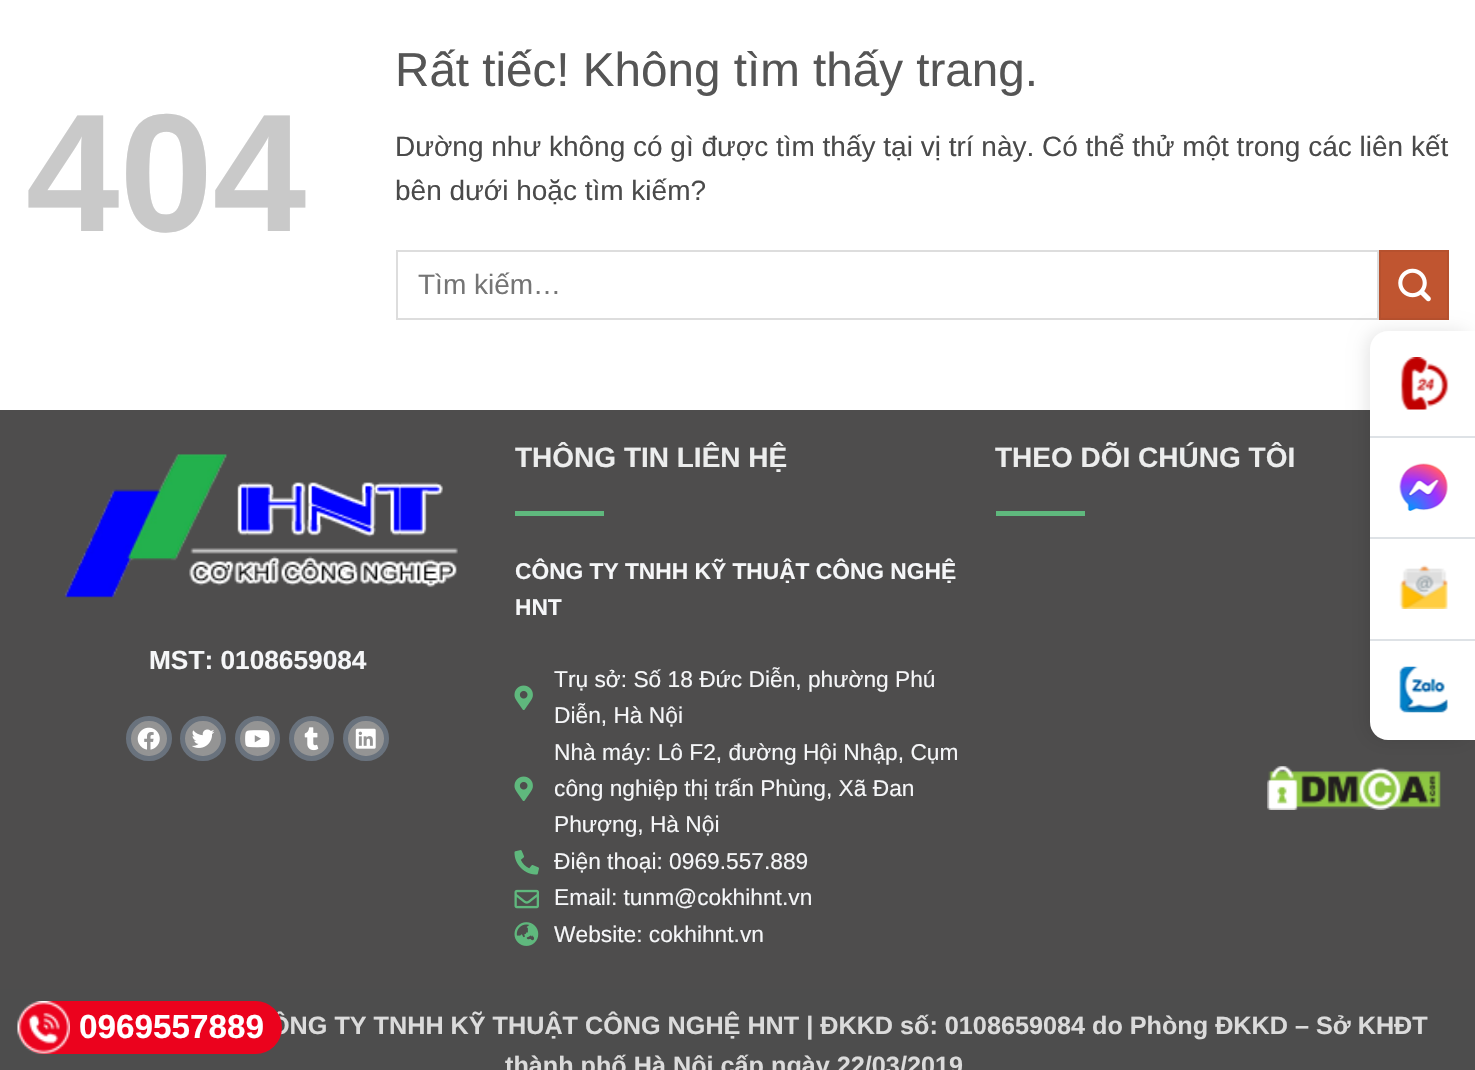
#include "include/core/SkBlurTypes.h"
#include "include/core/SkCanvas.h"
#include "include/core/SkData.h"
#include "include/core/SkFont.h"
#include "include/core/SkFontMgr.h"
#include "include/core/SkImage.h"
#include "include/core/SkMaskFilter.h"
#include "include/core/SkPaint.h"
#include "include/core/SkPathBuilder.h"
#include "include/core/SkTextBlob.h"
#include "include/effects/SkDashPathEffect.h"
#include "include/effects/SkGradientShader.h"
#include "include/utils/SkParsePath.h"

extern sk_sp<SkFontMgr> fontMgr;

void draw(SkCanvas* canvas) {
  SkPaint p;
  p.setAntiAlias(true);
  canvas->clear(SK_ColorWHITE);
  p.setStyle(SkPaint::kStroke_Style);
  p.setStrokeWidth(2);
  p.setColor(SkColorSetRGB(221, 221, 221));
  canvas->drawRect(SkRect::MakeLTRB(397, 251, 1378, 319), p);
  p.setStyle(SkPaint::kFill_Style);
  p.setColor(SkColorSetRGB(192, 85, 48));
  canvas->drawRect(SkRect::MakeLTRB(1380, 251, 1448, 319), p);
  p.setStyle(SkPaint::kStroke_Style);
  p.setColor(SkColorSetRGB(182, 81, 46));
  canvas->drawRect(SkRect::MakeLTRB(1380, 251, 1448, 319), p);
  canvas->drawImageRect(SkImages::DeferredFromEncodedData(SkData::MakeFromFileName("images/1.png")), SkRect::MakeLTRB(1398, 268, 1431, 302), SkSamplingOptions());
  p.setStyle(SkPaint::kFill_Style);
  p.setColor(SkColorSetRGB(78, 77, 77));
  canvas->drawRect(SkRect::MakeLTRB(0, 410, 1475, 989), p);
  p.setColor(SkColorSetRGB(95, 184, 125));
  canvas->drawRect(SkRect::MakeLTRB(515, 511, 604, 516), p);
  canvas->drawImageRect(SkImages::DeferredFromEncodedData(SkData::MakeFromFileName("images/2.png")), SkRect::MakeLTRB(514, 685, 533, 710), SkSamplingOptions());
  canvas->drawImageRect(SkImages::DeferredFromEncodedData(SkData::MakeFromFileName("images/2.png")), SkRect::MakeLTRB(514, 776, 533, 801), SkSamplingOptions());
  canvas->drawImageRect(SkImages::DeferredFromEncodedData(SkData::MakeFromFileName("images/3.png")), SkRect::MakeLTRB(514, 850, 539, 875), SkSamplingOptions());
  canvas->drawImageRect(SkImages::DeferredFromEncodedData(SkData::MakeFromFileName("images/4.png")), SkRect::MakeLTRB(514, 889, 539, 909), SkSamplingOptions());
  canvas->drawImageRect(SkImages::DeferredFromEncodedData(SkData::MakeFromFileName("images/5.png")), SkRect::MakeLTRB(514, 922, 539, 946), SkSamplingOptions());
  canvas->drawRect(SkRect::MakeLTRB(996, 511, 1085, 516), p);
  canvas->drawImageRect(SkImages::DeferredFromEncodedData(SkData::MakeFromFileName("images/6.png")), SkRect::MakeLTRB(1267, 766, 1441, 810), SkSamplingOptions());
  canvas->drawImageRect(SkImages::DeferredFromEncodedData(SkData::MakeFromFileName("images/7.png")), SkRect::MakeLTRB(64, 454, 458, 598), SkSamplingOptions());
  p.setColor(SkColorSetRGB(148, 148, 148));
  canvas->drawRoundRect(SkRect::MakeLTRB(128.5f, 718.5f, 169.5f, 758.5f), 20, 20, p);
  p.setStyle(SkPaint::kStroke_Style);
  p.setStrokeWidth(5);
  p.setColor(SkColorSetRGB(105, 114, 125));
  canvas->drawRoundRect(SkRect::MakeLTRB(128.5f, 718.5f, 169.5f, 758.5f), 20, 20, p);
  canvas->drawImageRect(SkImages::DeferredFromEncodedData(SkData::MakeFromFileName("images/8.png")), SkRect::MakeLTRB(137, 727, 160, 750), SkSamplingOptions());
  p.setStyle(SkPaint::kFill_Style);
  p.setColor(SkColorSetRGB(148, 148, 148));
  canvas->drawRoundRect(SkRect::MakeLTRB(182.5f, 718.5f, 223.5f, 758.5f), 20, 20, p);
  p.setStyle(SkPaint::kStroke_Style);
  p.setColor(SkColorSetRGB(105, 114, 125));
  canvas->drawRoundRect(SkRect::MakeLTRB(182.5f, 718.5f, 223.5f, 758.5f), 20, 20, p);
  canvas->drawImageRect(SkImages::DeferredFromEncodedData(SkData::MakeFromFileName("images/9.png")), SkRect::MakeLTRB(192, 729, 215, 748), SkSamplingOptions());
  p.setStyle(SkPaint::kFill_Style);
  p.setColor(SkColorSetRGB(148, 148, 148));
  canvas->drawCircle(257.5f, 738.5f, 20, p);
  p.setStyle(SkPaint::kStroke_Style);
  p.setColor(SkColorSetRGB(105, 114, 125));
  canvas->drawCircle(257.5f, 738.5f, 20, p);
  canvas->drawImageRect(SkImages::DeferredFromEncodedData(SkData::MakeFromFileName("images/10.png")), SkRect::MakeLTRB(245, 730, 270, 748), SkSamplingOptions());
  p.setStyle(SkPaint::kFill_Style);
  p.setColor(SkColorSetRGB(148, 148, 148));
  canvas->drawCircle(311.5f, 738.5f, 20, p);
  p.setStyle(SkPaint::kStroke_Style);
  p.setColor(SkColorSetRGB(105, 114, 125));
  canvas->drawCircle(311.5f, 738.5f, 20, p);
  canvas->drawImageRect(SkImages::DeferredFromEncodedData(SkData::MakeFromFileName("images/11.png")), SkRect::MakeLTRB(304, 727, 319, 751), SkSamplingOptions());
  p.setStyle(SkPaint::kFill_Style);
  p.setColor(SkColorSetRGB(148, 148, 148));
  canvas->drawRoundRect(SkRect::MakeLTRB(345.5f, 718.5f, 386.5f, 758.5f), 20, 20, p);
  p.setStyle(SkPaint::kStroke_Style);
  p.setColor(SkColorSetRGB(105, 114, 125));
  canvas->drawRoundRect(SkRect::MakeLTRB(345.5f, 718.5f, 386.5f, 758.5f), 20, 20, p);
  canvas->drawImageRect(SkImages::DeferredFromEncodedData(SkData::MakeFromFileName("images/12.png")), SkRect::MakeLTRB(355, 728, 376, 749), SkSamplingOptions());
  p.setStyle(SkPaint::kFill_Style);
  p.setColor(SkColorSetRGB(77, 77, 77));
  canvas->drawRect(SkRect::MakeLTRB(0, 989, 1475, 1070), p);
  p.setColor(SkColorSetARGB(26, 0, 0, 0));
  p.setMaskFilter(SkMaskFilter::MakeBlur(kNormal_SkBlurStyle, 9));
  canvas->drawRoundRect(SkRect::MakeLTRB(1367, 331, 1472, 740), 18, 18, p);
  p.setMaskFilter(nullptr);
  p.setColor(SK_ColorWHITE);
  canvas->drawPath(SkPathBuilder().moveTo(1388, 331).lineTo(1475, 331).lineTo(1475, 740).lineTo(1388, 740).cubicTo(1378, 740, 1370, 732, 1370, 722).lineTo(1370, 349).cubicTo(1370, 339, 1378, 331, 1388, 331).close().detach(), p);
  p.setColor(SkColorSetRGB(222, 226, 230));
  canvas->drawRect(SkRect::MakeLTRB(1370, 436, 1475, 438), p);
  canvas->drawImageRect(SkImages::DeferredFromEncodedData(SkData::MakeFromFileName("images/13.png")), SkRect::MakeLTRB(1400, 357, 1449, 410), SkSamplingOptions());
  canvas->drawRect(SkRect::MakeLTRB(1370, 537, 1475, 539), p);
  canvas->drawImageRect(SkImages::DeferredFromEncodedData(SkData::MakeFromFileName("images/14.png")), SkRect::MakeLTRB(1399, 463, 1448, 511), SkSamplingOptions());
  canvas->drawRect(SkRect::MakeLTRB(1370, 639, 1475, 641), p);
  canvas->drawImageRect(SkImages::DeferredFromEncodedData(SkData::MakeFromFileName("images/15.png")), SkRect::MakeLTRB(1399, 565, 1448, 609), SkSamplingOptions());
  canvas->drawImageRect(SkImages::DeferredFromEncodedData(SkData::MakeFromFileName("images/16.png")), SkRect::MakeLTRB(1399, 666, 1448, 713), SkSamplingOptions());
  SkFont font1(fontMgr->matchFamilyStyle("Liberation Sans", SkFontStyle::Bold()), 168);
  font1.setSubpixel(true);
  p.setColor(SkColorSetRGB(201, 201, 201));
  canvas->drawString("404", 26, 231, font1, p);
  SkFont font2(fontMgr->matchFamilyStyle("Liberation Sans", SkFontStyle::Normal()), 47.6f);
  font2.setSubpixel(true);
  p.setColor(SkColorSetRGB(85, 85, 85));
  canvas->drawString("Rất tiếc! Không tìm thấy trang.", 395, 86, font2, p);
  SkFont font3(fontMgr->matchFamilyStyle("Liberation Sans", SkFontStyle::Normal()), 28);
  font3.setSubpixel(true);
  p.setColor(SkColorSetRGB(74, 74, 74));
  canvas->drawString("Dường như không có gì được tìm thấy tại vị trí này. Có thể thử một trong các liên kết", 395, 156, font3, p);
  canvas->drawString("bên dưới hoặc tìm kiếm?", 395, 200, font3, p);
  p.setColor(SkColorSetRGB(117, 117, 117));
  canvas->drawString("Tìm kiếm…", 418, 294, font3, p);
  SkFont font4(fontMgr->matchFamilyStyle("Liberation Sans", SkFontStyle::Bold()), 28);
  font4.setSubpixel(true);
  p.setColor(SkColorSetRGB(236, 237, 237));
  canvas->drawString("THÔNG TIN LIÊN HỆ", 515, 467, font4, p);
  SkFont font5(fontMgr->matchFamilyStyle("Liberation Sans", SkFontStyle::Bold()), 22.75f);
  font5.setSubpixel(true);
  p.setColor(SkColorSetRGB(245, 246, 248));
  canvas->drawString("CÔNG TY TNHH KỸ THUẬT CÔNG NGHỆ", 515, 579, font5, p);
  canvas->drawString("HNT", 515, 615, font5, p);
  SkFont font6(fontMgr->matchFamilyStyle("Liberation Sans", SkFontStyle::Normal()), 22.75f);
  font6.setSubpixel(true);
  canvas->drawString("Trụ sở: Số 18 Đức Diễn, phường Phú", 554, 687, font6, p);
  canvas->drawString("Diễn, Hà Nội", 554, 723, font6, p);
  canvas->drawString("Nhà máy: Lô F2, đường Hội Nhập, Cụm", 554, 760, font6, p);
  canvas->drawString("công nghiệp thị trấn Phùng, Xã Đan", 554, 796, font6, p);
  canvas->drawString("Phượng, Hà Nội", 554, 832, font6, p);
  canvas->drawString("Điện thoại: 0969.557.889", 554, 869, font6, p);
  canvas->drawString("Email: tunm@cokhihnt.vn", 554, 905, font6, p);
  canvas->drawString("Website: cokhihnt.vn", 554, 942, font6, p);
  p.setColor(SkColorSetRGB(236, 237, 237));
  canvas->drawString("THEO DÕI CHÚNG TÔI", 995, 467, font4, p);
  SkFont font7(fontMgr->matchFamilyStyle("Liberation Sans", SkFontStyle::Bold()), 26.25f);
  font7.setSubpixel(true);
  p.setColor(SkColorSetRGB(245, 246, 248));
  canvas->drawString("MST: 0108659084", 149, 669, font7, p);
  SkFont font8(fontMgr->matchFamilyStyle("Liberation Sans", SkFontStyle::Bold()), 25.2f);
  font8.setSubpixel(true);
  p.setColor(SkColorSetRGB(219, 219, 219));
  canvas->drawString("ÔNG TY TNHH KỸ THUẬT CÔNG NGHỆ HNT | ĐKKD số: 0108659084 do Phòng ĐKKD – Sở KHĐT", 270, 1034, font8, p);
  canvas->drawString("thành phố Hà Nội cấp ngày 22/03/2019", 505, 1074, font8, p);
  p.setColor(SkColorSetRGB(235, 2, 29));
  canvas->drawRoundRect(SkRect::MakeLTRB(18, 1001, 282, 1054), 26.5f, 26.5f, p);
  canvas->drawImageRect(SkImages::DeferredFromEncodedData(SkData::MakeFromFileName("images/17.png")), SkRect::MakeLTRB(17, 1001, 70, 1054), SkSamplingOptions());
  SkFont font9(fontMgr->matchFamilyStyle("Liberation Sans", SkFontStyle::Bold()), 33.25f);
  font9.setSubpixel(true);
  p.setColor(SK_ColorWHITE);
  canvas->drawString("0969557889", 79, 1038, font9, p);
}
